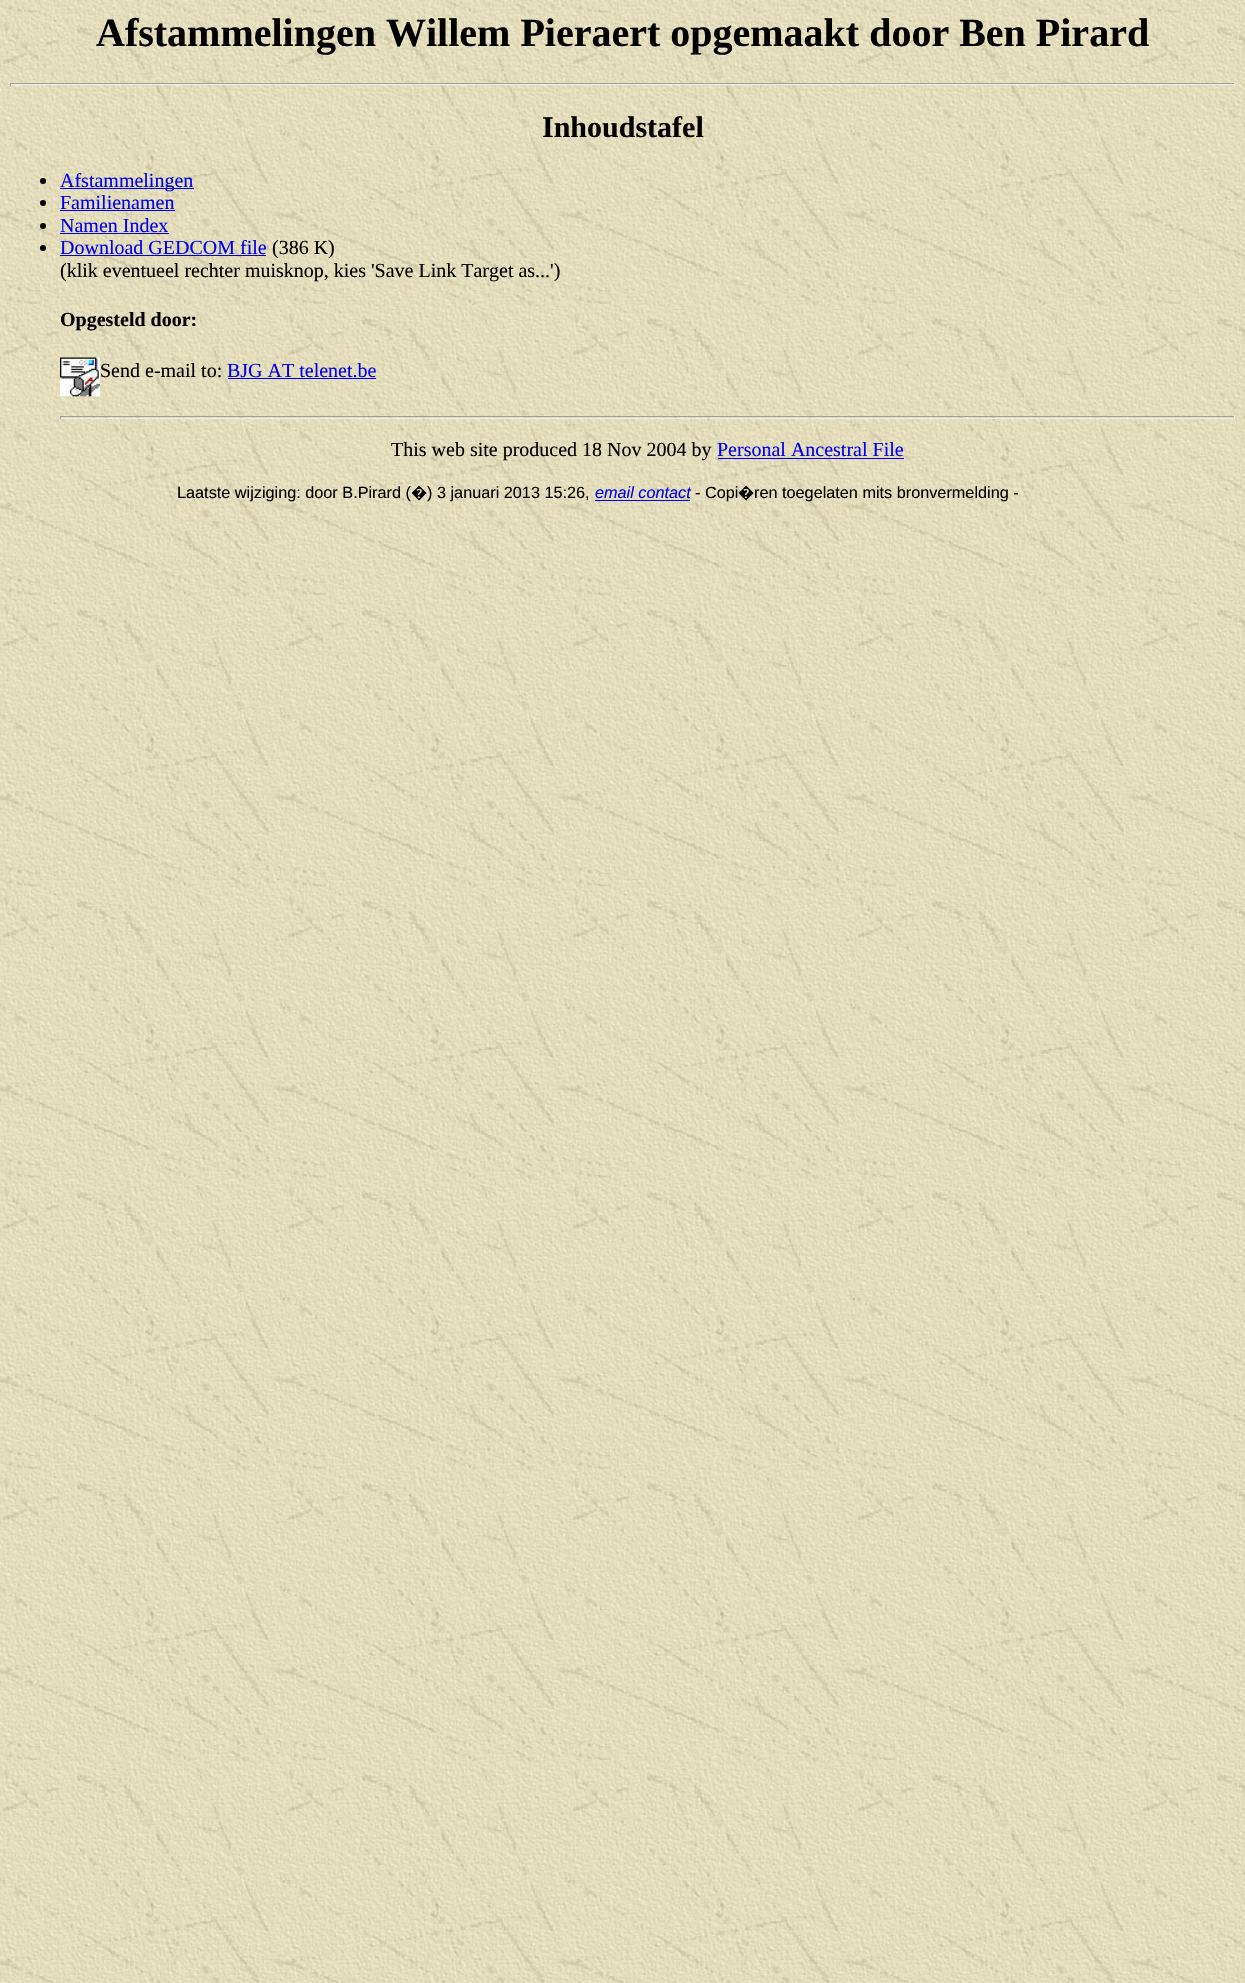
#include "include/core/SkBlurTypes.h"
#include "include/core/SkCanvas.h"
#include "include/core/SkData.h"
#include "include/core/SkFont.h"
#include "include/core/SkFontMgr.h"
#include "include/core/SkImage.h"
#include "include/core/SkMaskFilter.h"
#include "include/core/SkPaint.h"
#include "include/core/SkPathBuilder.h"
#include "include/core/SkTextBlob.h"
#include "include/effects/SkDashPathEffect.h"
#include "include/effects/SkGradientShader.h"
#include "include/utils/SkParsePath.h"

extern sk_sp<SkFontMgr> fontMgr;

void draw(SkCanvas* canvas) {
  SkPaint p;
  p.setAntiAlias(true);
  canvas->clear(SK_ColorWHITE);
  canvas->drawImageRect(SkImages::DeferredFromEncodedData(SkData::MakeFromFileName("images/1.png")), SkRect::MakeLTRB(0, 0, 1245, 1983), SkSamplingOptions());
  p.setColor(SkColorSetRGB(159, 159, 159));
  canvas->drawRect(SkRect::MakeLTRB(10, 83, 1235, 84), p);
  p.setColor(SkColorSetRGB(238, 238, 238));
  canvas->drawRect(SkRect::MakeLTRB(1234, 83, 1235, 86), p);
  canvas->drawRect(SkRect::MakeLTRB(10, 84, 1235, 85), p);
  p.setColor(SkColorSetRGB(159, 159, 159));
  canvas->drawRect(SkRect::MakeLTRB(10, 83, 11, 86), p);
  p.setColor(SK_ColorBLACK);
  canvas->drawCircle(43, 181, 3, p);
  p.setColor(SkColorSetRGB(0, 0, 238));
  canvas->drawRect(SkRect::MakeLTRB(60, 188, 194, 189), p);
  p.setColor(SK_ColorBLACK);
  canvas->drawCircle(43, 203, 3, p);
  p.setColor(SkColorSetRGB(0, 0, 238));
  canvas->drawRect(SkRect::MakeLTRB(60, 210, 175, 211), p);
  p.setColor(SK_ColorBLACK);
  canvas->drawCircle(43, 226, 3, p);
  p.setColor(SkColorSetRGB(0, 0, 238));
  canvas->drawRect(SkRect::MakeLTRB(60, 233, 169, 234), p);
  p.setColor(SK_ColorBLACK);
  canvas->drawCircle(43, 248, 3, p);
  p.setColor(SkColorSetRGB(0, 0, 238));
  canvas->drawRect(SkRect::MakeLTRB(60, 255, 266, 256), p);
  canvas->drawImageRect(SkImages::DeferredFromEncodedData(SkData::MakeFromFileName("images/2.png")), SkRect::MakeLTRB(60, 357, 100, 397), SkSamplingOptions());
  canvas->drawRect(SkRect::MakeLTRB(228, 378, 376, 379), p);
  p.setColor(SkColorSetRGB(159, 159, 159));
  canvas->drawRect(SkRect::MakeLTRB(60, 416, 1235, 417), p);
  p.setColor(SkColorSetRGB(238, 238, 238));
  canvas->drawRect(SkRect::MakeLTRB(1234, 416, 1235, 419), p);
  canvas->drawRect(SkRect::MakeLTRB(60, 418, 1235, 419), p);
  p.setColor(SkColorSetRGB(159, 159, 159));
  canvas->drawRect(SkRect::MakeLTRB(60, 416, 61, 419), p);
  p.setColor(SkColorSetRGB(0, 0, 238));
  canvas->drawRect(SkRect::MakeLTRB(718, 458, 904, 459), p);
  canvas->drawRect(SkRect::MakeLTRB(595, 500, 690, 501), p);
  SkFont font1(fontMgr->matchFamilyStyle("Liberation Serif", SkFontStyle::Bold()), 40);
  font1.setSubpixel(true);
  p.setColor(SK_ColorBLACK);
  canvas->drawString("Afstammelingen Willem Pieraert opgemaakt door Ben Pirard", 96, 46, font1, p);
  SkFont font2(fontMgr->matchFamilyStyle("Liberation Serif", SkFontStyle::Bold()), 30);
  font2.setSubpixel(true);
  canvas->drawString("Inhoudstafel", 542, 137, font2, p);
  SkFont font3(fontMgr->matchFamilyStyle("Liberation Serif", SkFontStyle::Normal()), 20);
  font3.setSubpixel(true);
  p.setColor(SkColorSetRGB(0, 0, 238));
  canvas->drawString("Afstammelingen", 60, 187, font3, p);
  canvas->drawString("Familienamen", 60, 209, font3, p);
  canvas->drawString("Namen Index", 60, 232, font3, p);
  canvas->drawString("Download GEDCOM file", 60, 254, font3, p);
  p.setColor(SK_ColorBLACK);
  canvas->drawString("(386 K)", 272, 254, font3, p);
  canvas->drawString("(klik eventueel rechter muisknop, kies 'Save Link Target as...')", 60, 277, font3, p);
  SkFont font4(fontMgr->matchFamilyStyle("Liberation Serif", SkFontStyle::Bold()), 20);
  font4.setSubpixel(true);
  canvas->drawString("Opgesteld door:", 60, 326, font4, p);
  canvas->drawString("Send e-mail to:", 100, 377, font3, p);
  p.setColor(SkColorSetRGB(0, 0, 238));
  canvas->drawString("BJG AT telenet.be", 227, 377, font3, p);
  p.setColor(SK_ColorBLACK);
  canvas->drawString("This web site produced 18 Nov 2004 by", 391, 456, font3, p);
  p.setColor(SkColorSetRGB(0, 0, 238));
  canvas->drawString("Personal Ancestral File", 717, 456, font3, p);
  SkFont font5(fontMgr->matchFamilyStyle("Liberation Sans", SkFontStyle::Normal()), 16.25f);
  font5.setSubpixel(true);
  p.setColor(SK_ColorBLACK);
  canvas->drawString("Laatste wijziging: door B.Pirard (", 177, 498, font5, p);
  SkFont font6(fontMgr->matchFamilyStyle("Noto Sans", SkFontStyle::Normal()), 16.25f);
  font6.setSubpixel(true);
  canvas->drawString("�", 411, 498, font6, p);
  canvas->drawString(") 3 januari 2013 15:26,", 427, 498, font5, p);
  SkFont font7(fontMgr->matchFamilyStyle("Liberation Sans", SkFontStyle::Italic()), 16.25f);
  font7.setSubpixel(true);
  p.setColor(SkColorSetRGB(0, 0, 238));
  canvas->drawString("email contact", 595, 498, font7, p);
  p.setColor(SK_ColorBLACK);
  canvas->drawString("- Copi", 695, 498, font5, p);
  canvas->drawString("�", 738, 498, font6, p);
  canvas->drawString("ren toegelaten mits bronvermelding -", 754, 498, font5, p);
}
